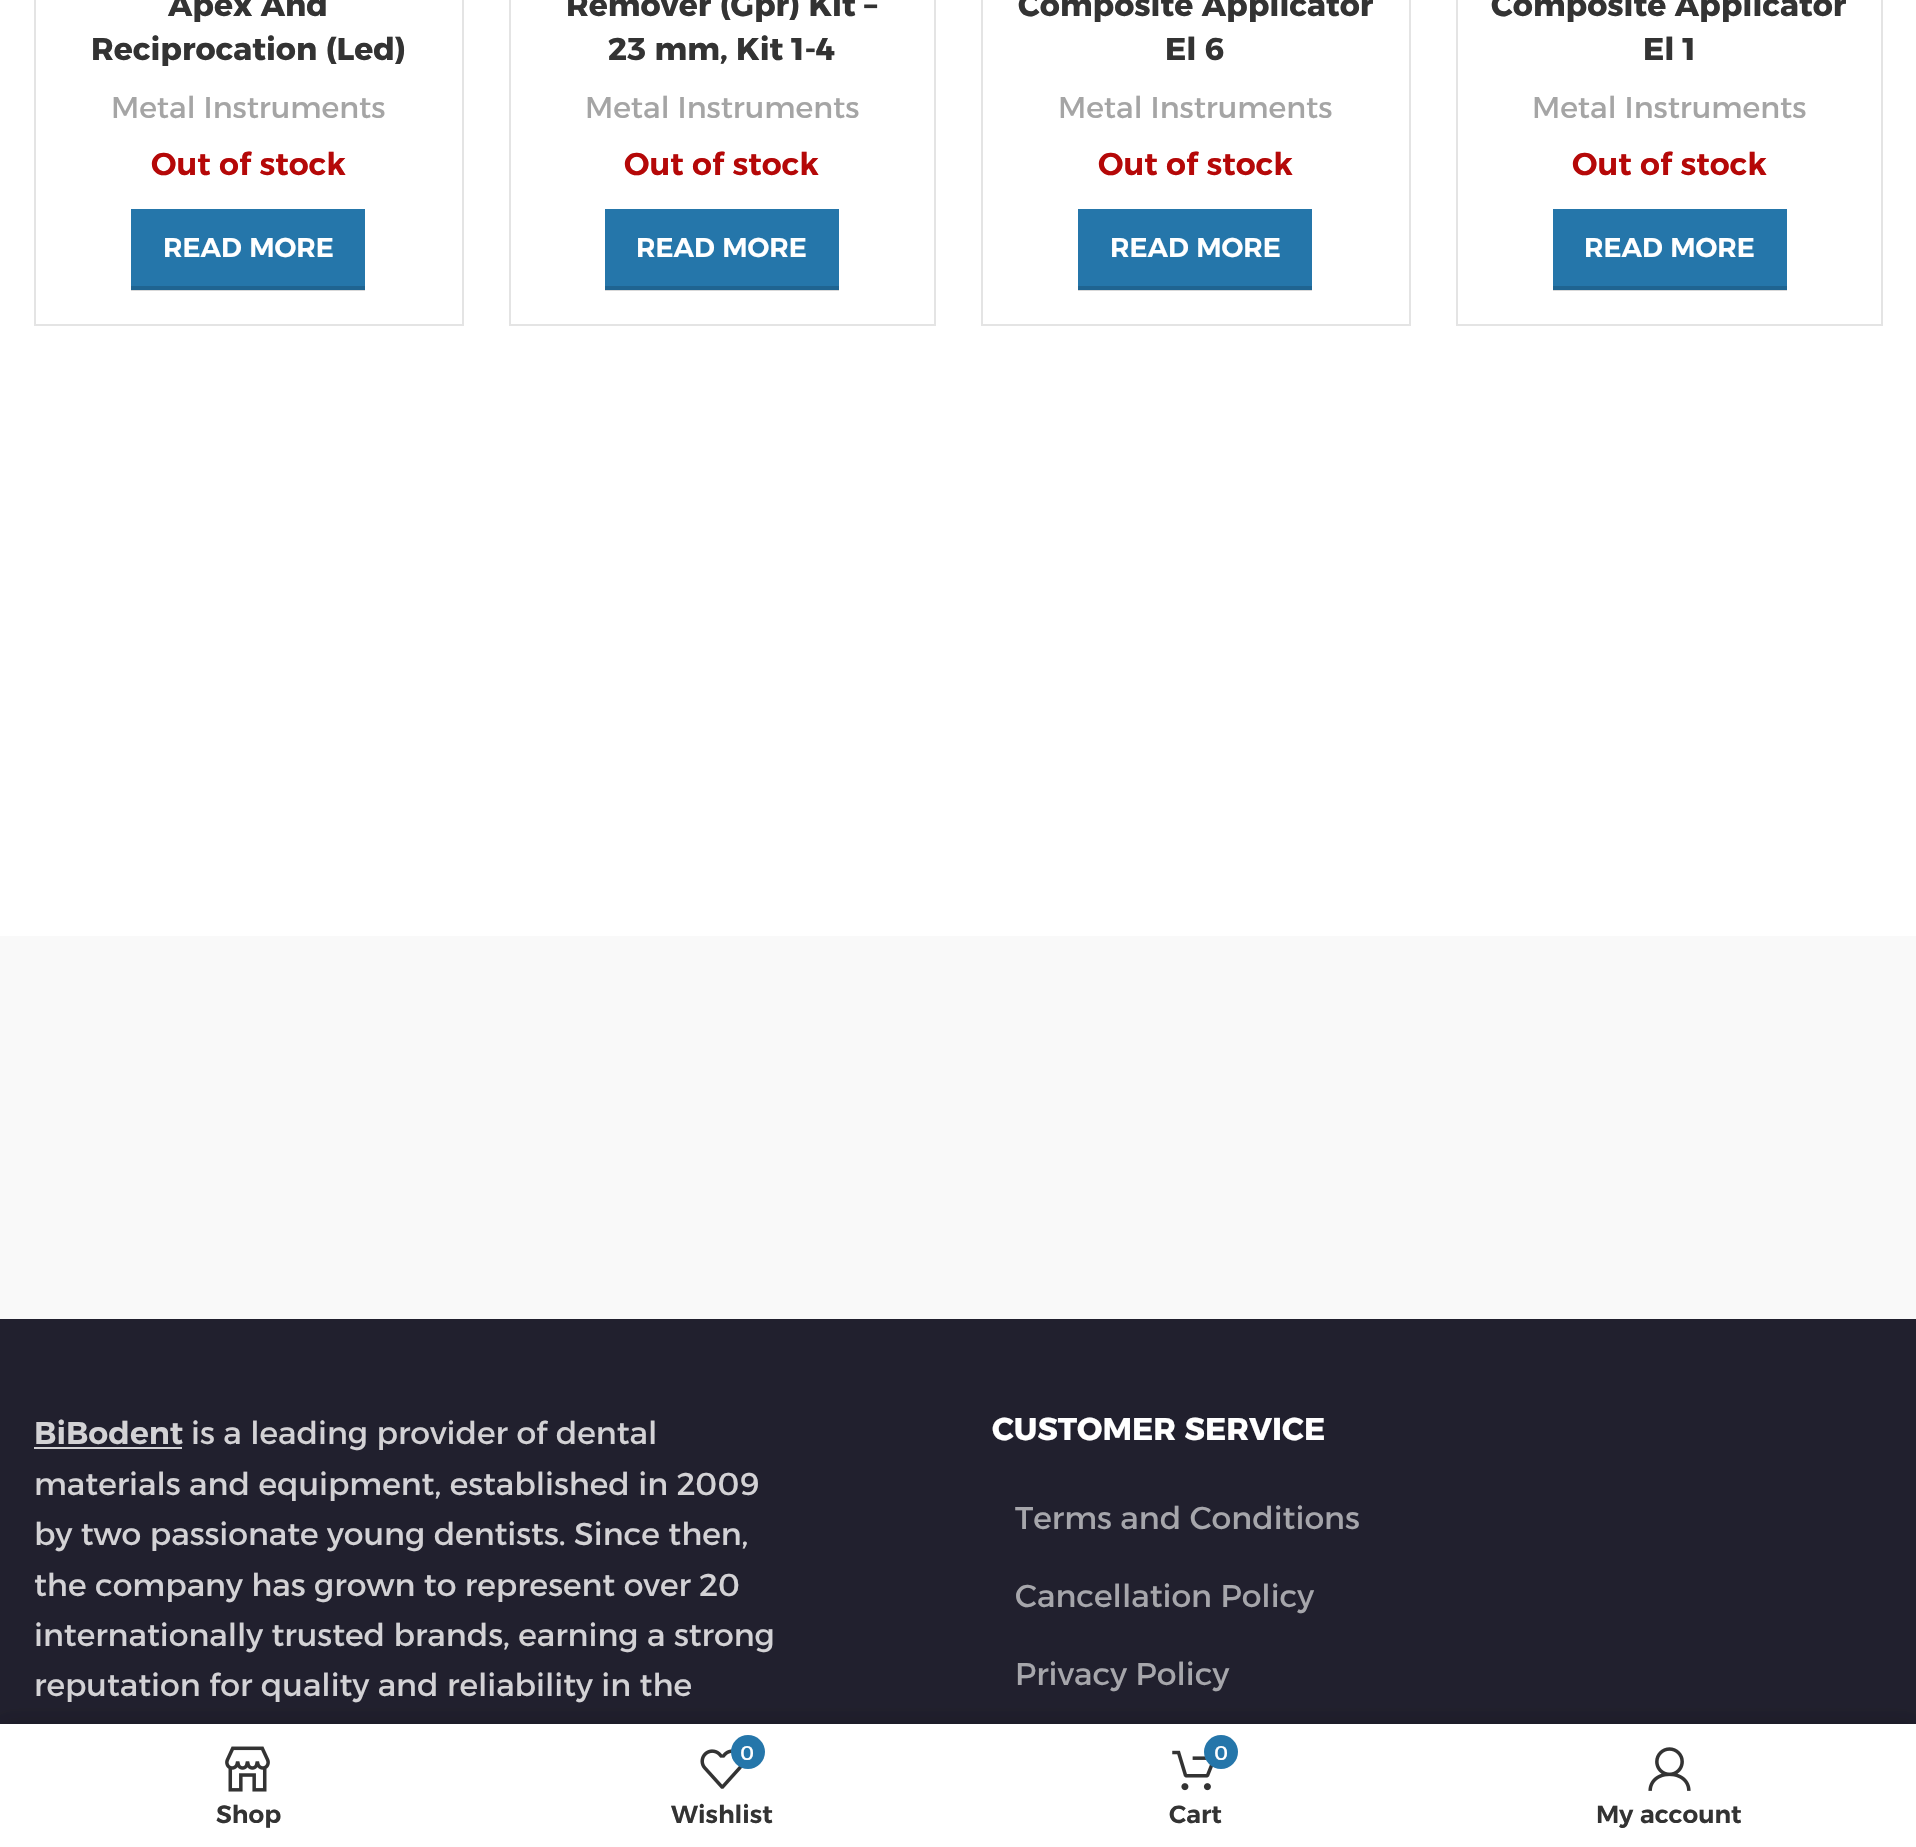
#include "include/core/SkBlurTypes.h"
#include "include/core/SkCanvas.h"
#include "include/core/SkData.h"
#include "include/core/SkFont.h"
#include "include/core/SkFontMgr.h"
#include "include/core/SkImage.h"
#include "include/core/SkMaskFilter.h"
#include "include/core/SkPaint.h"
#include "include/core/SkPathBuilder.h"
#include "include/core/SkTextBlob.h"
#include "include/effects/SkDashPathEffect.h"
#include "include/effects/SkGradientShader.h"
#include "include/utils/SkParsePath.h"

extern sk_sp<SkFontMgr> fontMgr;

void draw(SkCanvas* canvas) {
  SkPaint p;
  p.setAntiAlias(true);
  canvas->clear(SK_ColorWHITE);
  p.setColor(SkColorSetRGB(217, 217, 217));
  canvas->drawRect(SkRect::MakeLTRB(1553, 290, 1787, 291), p);
  canvas->drawRect(SkRect::MakeLTRB(1078, 290, 1312, 291), p);
  canvas->drawRect(SkRect::MakeLTRB(605, 290, 839, 291), p);
  canvas->drawRect(SkRect::MakeLTRB(131, 290, 365, 291), p);
  p.setStyle(SkPaint::kStroke_Style);
  p.setStrokeWidth(2);
  p.setColor(SkColorSetRGB(228, 228, 228));
  canvas->drawRect(SkRect::MakeLTRB(35, -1, 463, 325), p);
  p.setStyle(SkPaint::kFill_Style);
  p.setColor(SkColorSetRGB(37, 118, 170));
  canvas->drawRect(SkRect::MakeLTRB(131, 209, 365, 286), p);
  p.setColor(SkColorSetRGB(31, 100, 145));
  canvas->drawRect(SkRect::MakeLTRB(131, 286, 365, 290), p);
  p.setStyle(SkPaint::kStroke_Style);
  p.setColor(SkColorSetRGB(228, 228, 228));
  canvas->drawRect(SkRect::MakeLTRB(510, -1, 935, 325), p);
  p.setStyle(SkPaint::kFill_Style);
  p.setColor(SkColorSetRGB(37, 118, 170));
  canvas->drawRect(SkRect::MakeLTRB(605, 209, 839, 286), p);
  p.setColor(SkColorSetRGB(31, 100, 145));
  canvas->drawRect(SkRect::MakeLTRB(605, 286, 839, 290), p);
  p.setStyle(SkPaint::kStroke_Style);
  p.setColor(SkColorSetRGB(228, 228, 228));
  canvas->drawRect(SkRect::MakeLTRB(982, -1, 1410, 325), p);
  p.setStyle(SkPaint::kFill_Style);
  p.setColor(SkColorSetRGB(37, 118, 170));
  canvas->drawRect(SkRect::MakeLTRB(1078, 209, 1312, 286), p);
  p.setColor(SkColorSetRGB(31, 100, 145));
  canvas->drawRect(SkRect::MakeLTRB(1078, 286, 1312, 290), p);
  p.setStyle(SkPaint::kStroke_Style);
  p.setColor(SkColorSetRGB(228, 228, 228));
  canvas->drawRect(SkRect::MakeLTRB(1457, -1, 1882, 325), p);
  p.setStyle(SkPaint::kFill_Style);
  p.setColor(SkColorSetRGB(37, 118, 170));
  canvas->drawRect(SkRect::MakeLTRB(1553, 209, 1787, 286), p);
  p.setColor(SkColorSetRGB(31, 100, 145));
  canvas->drawRect(SkRect::MakeLTRB(1553, 286, 1787, 290), p);
  p.setColor(SkColorSetRGB(249, 249, 249));
  canvas->drawRect(SkRect::MakeLTRB(0, 936, 1916, 1319), p);
  p.setColor(SkColorSetRGB(33, 32, 46));
  canvas->drawRect(SkRect::MakeLTRB(0, 1319, 1916, 1724), p);
  p.setColor(SkColorSetRGB(211, 210, 213));
  canvas->drawRect(SkRect::MakeLTRB(34, 1447, 182, 1449), p);
  p.setColor(SkColorSetARGB(31, 0, 0, 0));
  p.setMaskFilter(SkMaskFilter::MakeBlur(kNormal_SkBlurStyle, 10));
  canvas->drawRect(SkRect::MakeLTRB(0, 1724, 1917, 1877), p);
  p.setMaskFilter(nullptr);
  p.setMaskFilter(SkMaskFilter::MakeBlur(kNormal_SkBlurStyle, 10));
  canvas->drawRect(SkRect::MakeLTRB(0, 1724, 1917, 1847), p);
  p.setMaskFilter(nullptr);
  p.setColor(SK_ColorWHITE);
  canvas->drawRect(SkRect::MakeLTRB(0, 1724, 1916, 1847), p);
  canvas->drawImageRect(SkImages::DeferredFromEncodedData(SkData::MakeFromFileName("images/1.png")), SkRect::MakeLTRB(225, 1746, 270, 1792), SkSamplingOptions());
  canvas->drawImageRect(SkImages::DeferredFromEncodedData(SkData::MakeFromFileName("images/2.png")), SkRect::MakeLTRB(700, 1749, 743, 1789), SkSamplingOptions());
  p.setColor(SkColorSetRGB(37, 118, 170));
  canvas->drawCircle(748, 1752, 17, p);
  canvas->drawImageRect(SkImages::DeferredFromEncodedData(SkData::MakeFromFileName("images/3.png")), SkRect::MakeLTRB(1172, 1750, 1213, 1791), SkSamplingOptions());
  canvas->drawCircle(1221, 1752, 17, p);
  canvas->drawImageRect(SkImages::DeferredFromEncodedData(SkData::MakeFromFileName("images/4.png")), SkRect::MakeLTRB(1648, 1747, 1691, 1791), SkSamplingOptions());
  SkFont font1(fontMgr->matchFamilyStyle("Alexandria", SkFontStyle::Bold()), 31.5f);
  font1.setSubpixel(true);
  p.setColor(SkColorSetRGB(51, 51, 51));
  canvas->drawString("Apex And", 168, 16, font1, p);
  canvas->drawString("Reciprocation (Led)", 91, 60, font1, p);
  SkFont font2(fontMgr->matchFamilyStyle("Alexandria", SkFontStyle::Normal()), 30);
  font2.setSubpixel(true);
  p.setColor(SkColorSetRGB(165, 165, 165));
  canvas->drawString("Metal Instruments", 111, 118, font2, p);
  SkFont font3(fontMgr->matchFamilyStyle("Alexandria", SkFontStyle(600, SkFontStyle::kNormal_Width, SkFontStyle::kUpright_Slant)), 31.5f);
  font3.setSubpixel(true);
  p.setColor(SkColorSetRGB(181, 8, 8));
  canvas->drawString("Out of stock", 151, 175, font3, p);
  SkFont font4(fontMgr->matchFamilyStyle("Alexandria", SkFontStyle(600, SkFontStyle::kNormal_Width, SkFontStyle::kUpright_Slant)), 27);
  font4.setSubpixel(true);
  p.setColor(SK_ColorWHITE);
  canvas->drawString("READ MORE", 163, 257, font4, p);
  p.setColor(SkColorSetRGB(51, 51, 51));
  canvas->drawString("Remover (Gpr) Kit –", 566, 16, font1, p);
  canvas->drawString("23 mm, Kit 1-4", 608, 60, font1, p);
  p.setColor(SkColorSetRGB(165, 165, 165));
  canvas->drawString("Metal Instruments", 585, 118, font2, p);
  p.setColor(SkColorSetRGB(181, 8, 8));
  canvas->drawString("Out of stock", 624, 175, font3, p);
  p.setColor(SK_ColorWHITE);
  canvas->drawString("READ MORE", 636, 257, font4, p);
  p.setColor(SkColorSetRGB(51, 51, 51));
  canvas->drawString("Composite Applicator", 1018, 16, font1, p);
  canvas->drawString("El 6", 1165, 60, font1, p);
  p.setColor(SkColorSetRGB(165, 165, 165));
  canvas->drawString("Metal Instruments", 1058, 118, font2, p);
  p.setColor(SkColorSetRGB(181, 8, 8));
  canvas->drawString("Out of stock", 1098, 175, font3, p);
  p.setColor(SK_ColorWHITE);
  canvas->drawString("READ MORE", 1110, 257, font4, p);
  p.setColor(SkColorSetRGB(51, 51, 51));
  canvas->drawString("Composite Applicator", 1491, 16, font1, p);
  canvas->drawString("El 1", 1643, 60, font1, p);
  p.setColor(SkColorSetRGB(165, 165, 165));
  canvas->drawString("Metal Instruments", 1532, 118, font2, p);
  p.setColor(SkColorSetRGB(181, 8, 8));
  canvas->drawString("Out of stock", 1572, 175, font3, p);
  p.setColor(SK_ColorWHITE);
  canvas->drawString("READ MORE", 1584, 257, font4, p);
  p.setColor(SkColorSetRGB(211, 210, 213));
  canvas->drawString("BiBodent", 34, 1444, font3, p);
  SkFont font5(fontMgr->matchFamilyStyle("Alexandria", SkFontStyle::Normal()), 31.5f);
  font5.setSubpixel(true);
  canvas->drawString("is a leading provider of dental", 191, 1444, font5, p);
  canvas->drawString("materials and equipment, established in 2009", 34, 1495, font5, p);
  canvas->drawString("by two passionate young dentists. Since then,", 34, 1545, font5, p);
  canvas->drawString("the company has grown to represent over 20", 34, 1596, font5, p);
  canvas->drawString("internationally trusted brands, earning a strong", 34, 1646, font5, p);
  canvas->drawString("reputation for quality and reliability in the", 34, 1696, font5, p);
  p.setColor(SK_ColorWHITE);
  canvas->drawString("CUSTOMER SERVICE", 992, 1440, font1, p);
  p.setColor(SkColorSetRGB(166, 166, 171));
  canvas->drawString("Terms and Conditions", 1015, 1529, font5, p);
  canvas->drawString("Cancellation Policy", 1015, 1607, font5, p);
  canvas->drawString("Privacy Policy", 1015, 1685, font5, p);
  SkFont font6(fontMgr->matchFamilyStyle("Alexandria", SkFontStyle(600, SkFontStyle::kNormal_Width, SkFontStyle::kUpright_Slant)), 24.75f);
  font6.setSubpixel(true);
  p.setColor(SkColorSetRGB(51, 51, 51));
  canvas->drawString("Shop", 216, 1823, font6, p);
  SkFont font7(fontMgr->matchFamilyStyle("Alexandria", SkFontStyle::Normal()), 20);
  font7.setSubpixel(true);
  p.setColor(SK_ColorWHITE);
  canvas->drawString("0", 740, 1760, font7, p);
  p.setColor(SkColorSetRGB(51, 51, 51));
  canvas->drawString("Wishlist", 671, 1823, font6, p);
  p.setColor(SK_ColorWHITE);
  canvas->drawString("0", 1214, 1760, font7, p);
  p.setColor(SkColorSetRGB(51, 51, 51));
  canvas->drawString("Cart", 1169, 1823, font6, p);
  canvas->drawString("My account", 1596, 1823, font6, p);
}
